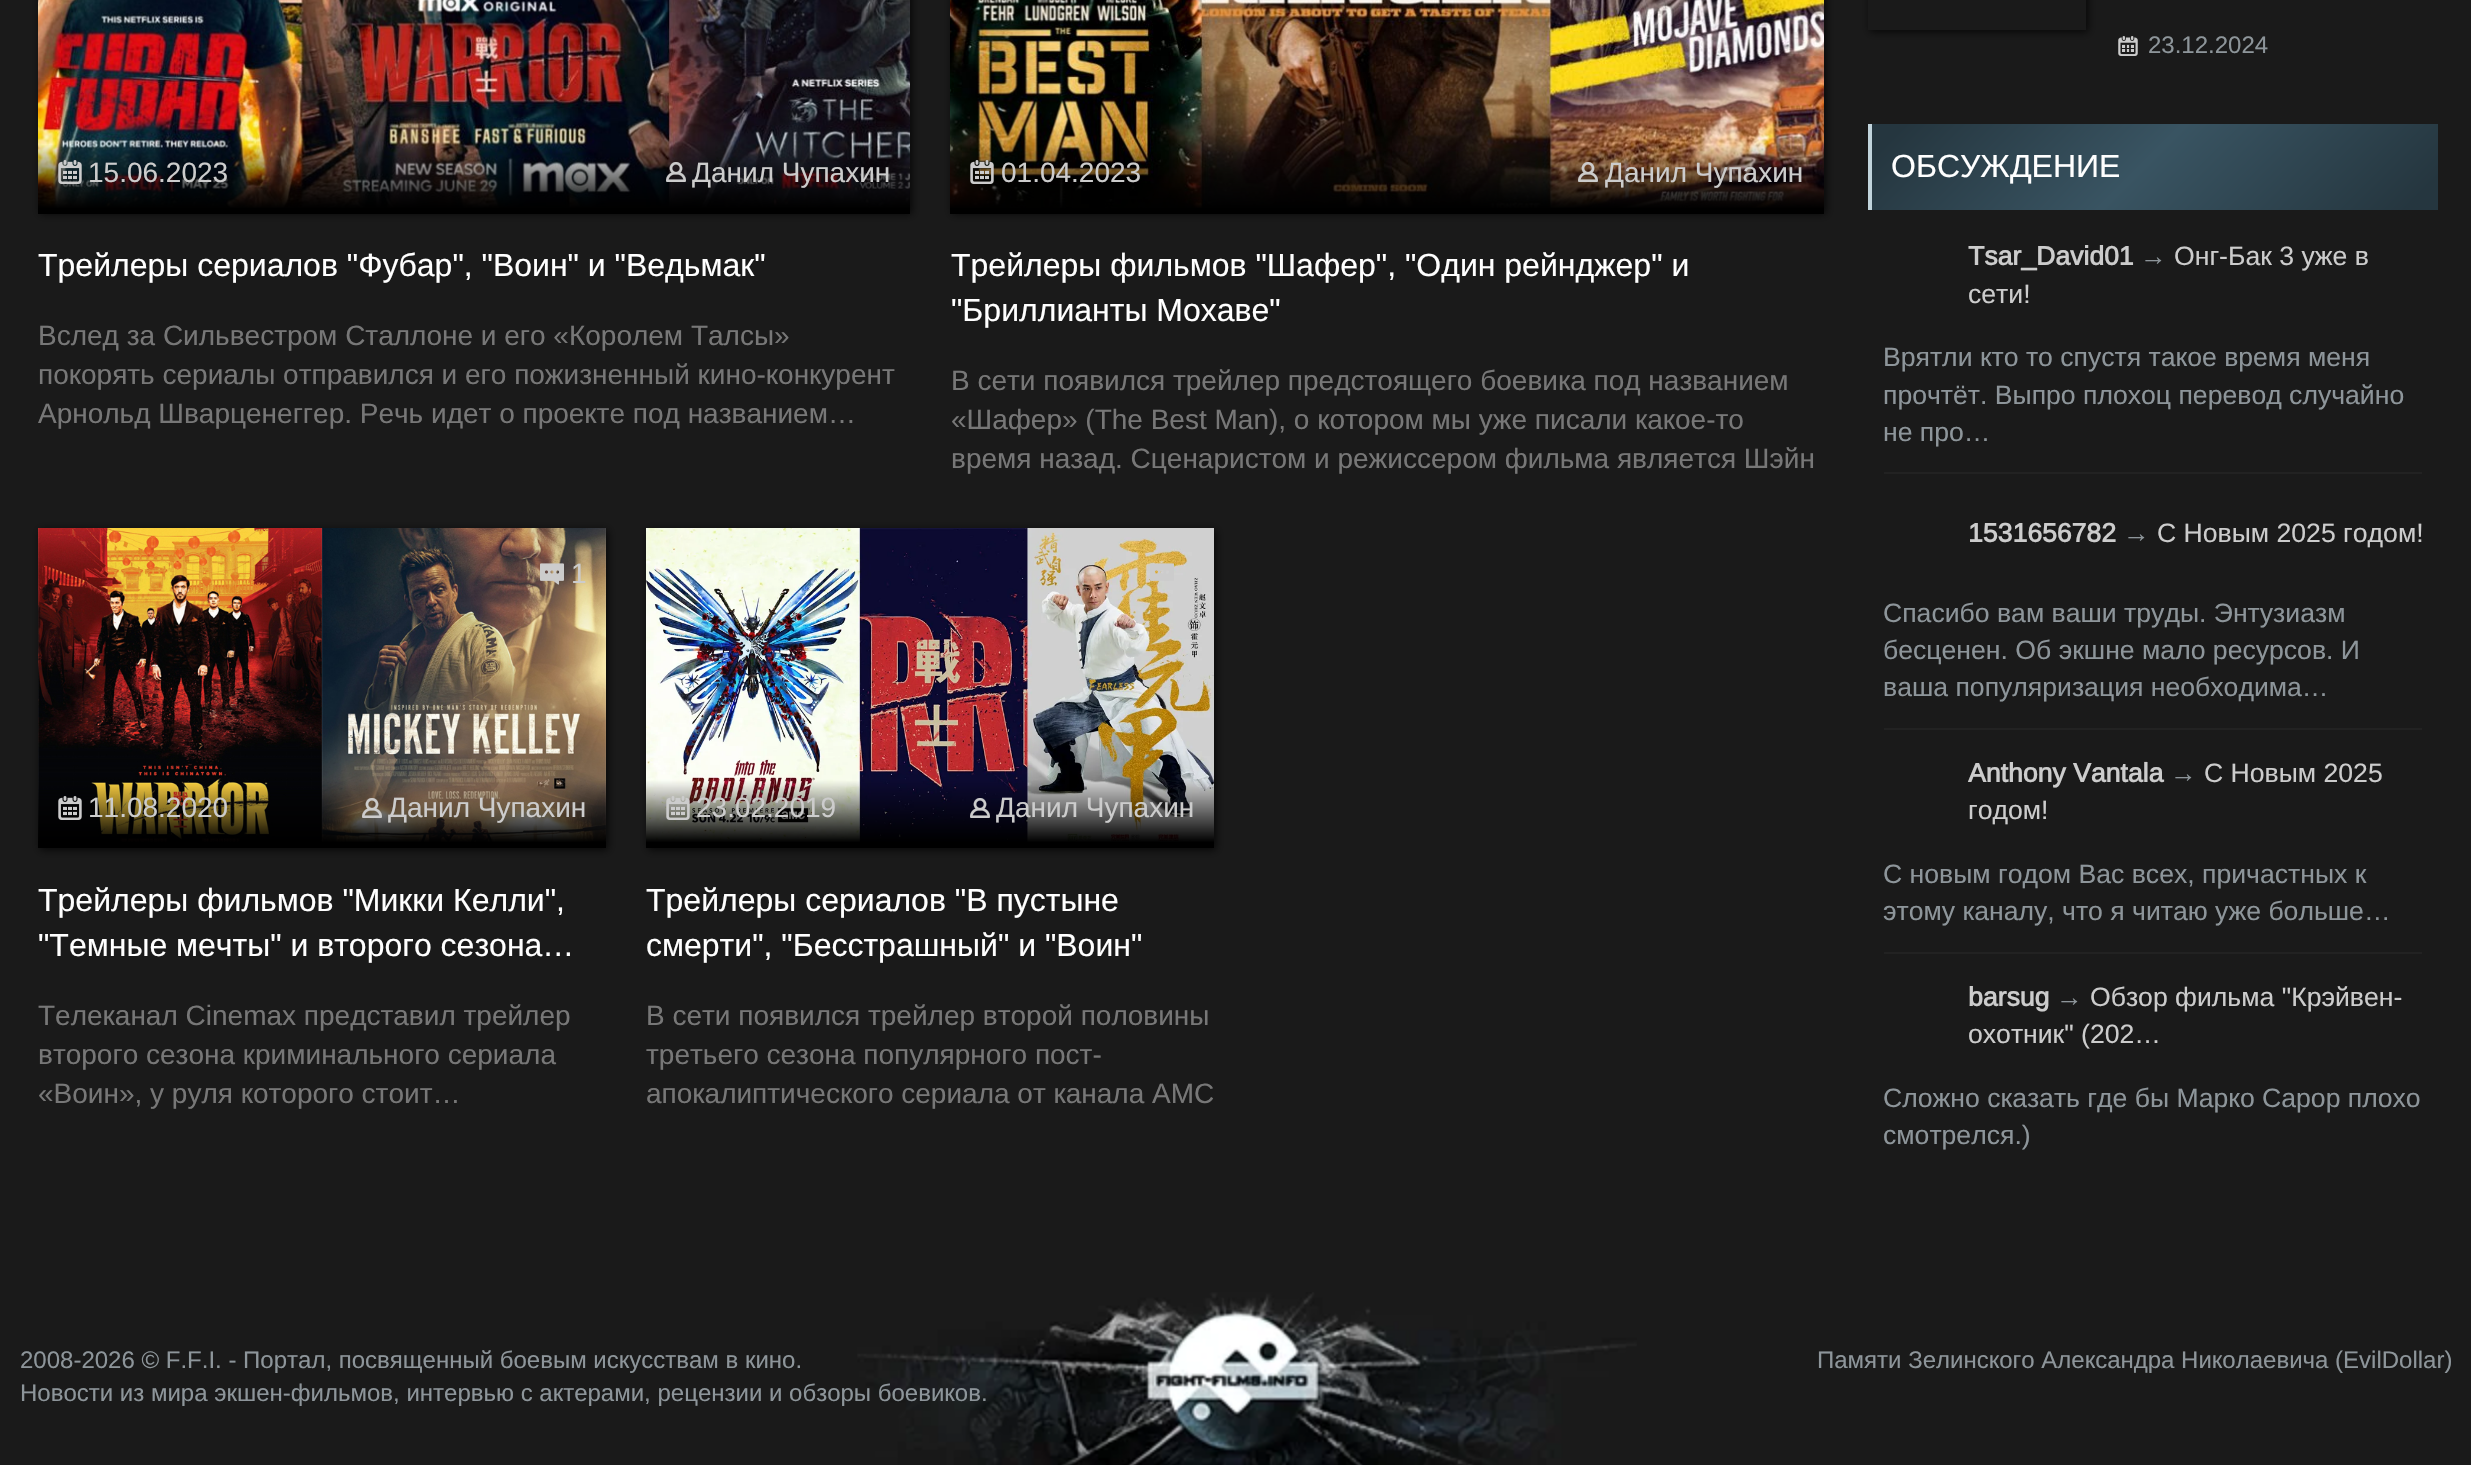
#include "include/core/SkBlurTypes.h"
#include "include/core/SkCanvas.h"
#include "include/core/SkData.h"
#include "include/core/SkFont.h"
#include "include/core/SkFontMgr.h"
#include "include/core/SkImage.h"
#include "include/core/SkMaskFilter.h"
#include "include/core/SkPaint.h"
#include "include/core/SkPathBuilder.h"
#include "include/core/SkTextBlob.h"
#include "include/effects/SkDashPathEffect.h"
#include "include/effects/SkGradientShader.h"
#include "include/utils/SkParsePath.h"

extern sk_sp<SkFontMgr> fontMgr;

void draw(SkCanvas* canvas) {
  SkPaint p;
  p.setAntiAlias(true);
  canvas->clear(SkColorSetRGB(26, 26, 26));
  p.setColor(SkColorSetARGB(191, 0, 0, 0));
  p.setMaskFilter(SkMaskFilter::MakeBlur(kNormal_SkBlurStyle, 4));
  canvas->drawRect(SkRect::MakeLTRB(40, -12, 912, 214), p);
  p.setMaskFilter(nullptr);
  canvas->drawImageRect(SkImages::DeferredFromEncodedData(SkData::MakeFromFileName("images/1.png")), SkRect::MakeLTRB(38, 0, 910, 208), SkSamplingOptions());
  {
    const SkColor colors[] = {SK_ColorBLACK, SkColorSetARGB(0, 0, 0, 0)};
    const float stops[] = {0.08f, 1};
    const SkPoint ends[] = {{474, 214}, {474, 144}};
    p.setShader(SkGradientShader::MakeLinear(ends, colors, stops, 2, SkTileMode::kClamp));
    p.setAlpha(255);
  }
  canvas->drawRect(SkRect::MakeLTRB(38, 145, 910, 214), p);
  canvas->drawImageRect(SkImages::DeferredFromEncodedData(SkData::MakeFromFileName("images/2.png")), SkRect::MakeLTRB(58, 160, 82, 184), SkSamplingOptions());
  canvas->drawImageRect(SkImages::DeferredFromEncodedData(SkData::MakeFromFileName("images/3.png")), SkRect::MakeLTRB(666, 162, 686, 182), SkSamplingOptions());
  p.setShader(nullptr);
  p.setColor(SkColorSetARGB(191, 0, 0, 0));
  p.setMaskFilter(SkMaskFilter::MakeBlur(kNormal_SkBlurStyle, 4));
  canvas->drawRect(SkRect::MakeLTRB(952, -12, 1826, 214), p);
  p.setMaskFilter(nullptr);
  canvas->drawImageRect(SkImages::DeferredFromEncodedData(SkData::MakeFromFileName("images/4.png")), SkRect::MakeLTRB(950, 0, 1824, 208), SkSamplingOptions());
  {
    const SkColor colors[] = {SK_ColorBLACK, SkColorSetARGB(0, 0, 0, 0)};
    const float stops[] = {0.08f, 1};
    const SkPoint ends[] = {{1387, 214}, {1387, 144}};
    p.setShader(SkGradientShader::MakeLinear(ends, colors, stops, 2, SkTileMode::kClamp));
    p.setAlpha(255);
  }
  canvas->drawRect(SkRect::MakeLTRB(950, 145, 1824, 214), p);
  canvas->drawImageRect(SkImages::DeferredFromEncodedData(SkData::MakeFromFileName("images/5.png")), SkRect::MakeLTRB(970, 160, 994, 184), SkSamplingOptions());
  canvas->drawImageRect(SkImages::DeferredFromEncodedData(SkData::MakeFromFileName("images/6.png")), SkRect::MakeLTRB(1578, 162, 1598, 182), SkSamplingOptions());
  p.setShader(nullptr);
  p.setColor(SkColorSetARGB(191, 0, 0, 0));
  p.setMaskFilter(SkMaskFilter::MakeBlur(kNormal_SkBlurStyle, 4));
  canvas->drawRect(SkRect::MakeLTRB(40, 530, 608, 850), p);
  p.setMaskFilter(nullptr);
  canvas->drawImageRect(SkImages::DeferredFromEncodedData(SkData::MakeFromFileName("images/7.png")), SkRect::MakeLTRB(38, 528, 606, 848), SkSamplingOptions());
  canvas->drawImageRect(SkImages::DeferredFromEncodedData(SkData::MakeFromFileName("images/8.png")), SkRect::MakeLTRB(540, 563, 564, 585), SkSamplingOptions());
  canvas->drawImageRect(SkImages::DeferredFromEncodedData(SkData::MakeFromFileName("images/9.png")), SkRect::MakeLTRB(58, 796, 82, 820), SkSamplingOptions());
  canvas->drawImageRect(SkImages::DeferredFromEncodedData(SkData::MakeFromFileName("images/10.png")), SkRect::MakeLTRB(362, 798, 382, 818), SkSamplingOptions());
  p.setMaskFilter(SkMaskFilter::MakeBlur(kNormal_SkBlurStyle, 4));
  canvas->drawRect(SkRect::MakeLTRB(648, 530, 1216, 850), p);
  p.setMaskFilter(nullptr);
  canvas->drawImageRect(SkImages::DeferredFromEncodedData(SkData::MakeFromFileName("images/11.png")), SkRect::MakeLTRB(646, 528, 1214, 848), SkSamplingOptions());
  canvas->drawImageRect(SkImages::DeferredFromEncodedData(SkData::MakeFromFileName("images/12.png")), SkRect::MakeLTRB(1150, 563, 1174, 581), SkSamplingOptions());
  canvas->drawImageRect(SkImages::DeferredFromEncodedData(SkData::MakeFromFileName("images/13.png")), SkRect::MakeLTRB(666, 796, 690, 820), SkSamplingOptions());
  canvas->drawImageRect(SkImages::DeferredFromEncodedData(SkData::MakeFromFileName("images/14.png")), SkRect::MakeLTRB(970, 798, 990, 818), SkSamplingOptions());
  canvas->save();
  canvas->clipPath(SkPathBuilder(SkPathFillType::kEvenOdd).moveTo(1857, 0).lineTo(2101, 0).lineTo(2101, 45).lineTo(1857, 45).close().moveTo(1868, -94).lineTo(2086, -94).lineTo(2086, 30).lineTo(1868, 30).close().detach(), true);
  p.setMaskFilter(SkMaskFilter::MakeBlur(kNormal_SkBlurStyle, 4));
  canvas->drawRect(SkRect::MakeLTRB(1870, -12, 2088, 32), p);
  p.setMaskFilter(nullptr);
  canvas->restore();
  canvas->drawImageRect(SkImages::DeferredFromEncodedData(SkData::MakeFromFileName("images/15.png")), SkRect::MakeLTRB(2118, 36, 2138, 56), SkSamplingOptions());
  {
    const SkColor colors[] = {SkColorSetRGB(37, 54, 63), SkColorSetRGB(57, 84, 98), SkColorSetRGB(37, 54, 63)};
    const float stops[] = {0.05f, 0.48f, 0.95f};
    const SkPoint ends[] = {{1992, 4}, {2318, 330}};
    p.setShader(SkGradientShader::MakeLinear(ends, colors, stops, 3, SkTileMode::kClamp));
    p.setAlpha(255);
  }
  canvas->drawRect(SkRect::MakeLTRB(1872, 124, 2438, 210), p);
  p.setShader(nullptr);
  p.setColor(SkColorSetRGB(193, 212, 220));
  canvas->drawRect(SkRect::MakeLTRB(1868, 124, 1872, 210), p);
  p.setColor(SkColorSetRGB(34, 34, 34));
  canvas->drawRect(SkRect::MakeLTRB(1884, 472, 2422, 474), p);
  canvas->drawRect(SkRect::MakeLTRB(1884, 728, 2422, 730), p);
  canvas->drawRect(SkRect::MakeLTRB(1884, 952, 2422, 954), p);
  canvas->drawImageRect(SkImages::DeferredFromEncodedData(SkData::MakeFromFileName("images/16.png")), SkRect::MakeLTRB(857, 1292, 1637, 1465), SkSamplingOptions());
  SkFont font1(fontMgr->matchFamilyStyle("Arimo", SkFontStyle::Normal()), 28);
  font1.setSubpixel(true);
  p.setColor(SkColorSetRGB(204, 204, 204));
  canvas->drawString("15.06.2023", 88, 182, font1, p);
  canvas->drawString("Данил Чупахин", 692, 182, font1, p);
  SkFont font2(fontMgr->matchFamilyStyle("Arimo", SkFontStyle::Normal()), 32);
  font2.setSubpixel(true);
  p.setColor(SK_ColorWHITE);
  canvas->drawString("Трейлеры сериалов \"Фубар\", \"Воин\" и \"Ведьмак\"", 38, 276, font2, p);
  p.setColor(SkColorSetRGB(119, 119, 119));
  canvas->drawString("Вслед за Сильвестром Сталлоне и его «Королем Талсы»", 38, 345, font1, p);
  canvas->drawString("покорять сериалы отправился и его пожизненный кино-конкурент", 38, 384, font1, p);
  canvas->drawString("Арнольд Шварценеггер. Речь идет о проекте под названием…", 38, 423, font1, p);
  p.setColor(SkColorSetRGB(204, 204, 204));
  canvas->drawString("01.04.2023", 1001, 182, font1, p);
  canvas->drawString("Данил Чупахин", 1605, 182, font1, p);
  p.setColor(SK_ColorWHITE);
  canvas->drawString("Трейлеры фильмов \"Шафер\", \"Один рейнджер\" и", 951, 276, font2, p);
  canvas->drawString("\"Бриллианты Мохаве\"", 951, 321, font2, p);
  p.setColor(SkColorSetRGB(119, 119, 119));
  canvas->drawString("В сети появился трейлер предстоящего боевика под названием", 951, 390, font1, p);
  canvas->drawString("«Шафер» (The Best Man), о котором мы уже писали какое-то", 951, 429, font1, p);
  canvas->drawString("время назад. Сценаристом и режиссером фильма является Шэйн", 951, 468, font1, p);
  p.setColor(SkColorSetRGB(204, 204, 204));
  canvas->drawString("1", 571, 583, font1, p);
  canvas->drawString("11.08.2020", 88, 817, font1, p);
  canvas->drawString("Данил Чупахин", 388, 817, font1, p);
  p.setColor(SK_ColorWHITE);
  canvas->drawString("Трейлеры фильмов \"Микки Келли\",", 38, 911, font2, p);
  canvas->drawString("\"Темные мечты\" и второго сезона…", 38, 956, font2, p);
  p.setColor(SkColorSetRGB(119, 119, 119));
  canvas->drawString("Телеканал Cinemax представил трейлер", 38, 1025, font1, p);
  canvas->drawString("второго сезона криминального сериала", 38, 1064, font1, p);
  canvas->drawString("«Воин», у руля которого стоит…", 38, 1103, font1, p);
  p.setColor(SkColorSetRGB(204, 204, 204));
  canvas->drawString("23.02.2019", 696, 817, font1, p);
  canvas->drawString("Данил Чупахин", 996, 817, font1, p);
  p.setColor(SK_ColorWHITE);
  canvas->drawString("Трейлеры сериалов \"В пустыне", 646, 911, font2, p);
  canvas->drawString("смерти\", \"Бесстрашный\" и \"Воин\"", 646, 956, font2, p);
  p.setColor(SkColorSetRGB(119, 119, 119));
  canvas->drawString("В сети появился трейлер второй половины", 646, 1025, font1, p);
  canvas->drawString("третьего сезона популярного пост-", 646, 1064, font1, p);
  canvas->drawString("апокалиптического сериала от канала AMC", 646, 1103, font1, p);
  SkFont font3(fontMgr->matchFamilyStyle("Arimo", SkFontStyle::Normal()), 24);
  font3.setSubpixel(true);
  p.setColor(SkColorSetRGB(141, 149, 154));
  canvas->drawString("23.12.2024", 2148, 53, font3, p);
  p.setColor(SK_ColorWHITE);
  canvas->drawString("ОБСУЖДЕНИЕ", 1891, 177, font2, p);
  SkFont font4(fontMgr->matchFamilyStyle("Arimo", SkFontStyle::Bold()), 26.6f);
  font4.setSubpixel(true);
  p.setColor(SkColorSetRGB(204, 204, 204));
  canvas->drawString("Tsar_David01", 1968, 265, font4, p);
  SkFont font5(fontMgr->matchFamilyStyle("Arimo", SkFontStyle::Normal()), 26.6f);
  font5.setSubpixel(true);
  p.setColor(SkColorSetRGB(141, 149, 154));
  canvas->drawString("→", 2140, 265, font5, p);
  p.setColor(SkColorSetRGB(204, 204, 204));
  canvas->drawString("Онг-Бак 3 уже в", 2174, 265, font5, p);
  canvas->drawString("сети!", 1968, 303, font5, p);
  p.setColor(SkColorSetRGB(141, 149, 154));
  canvas->drawString("Врятли кто то спустя такое время меня", 1883, 366, font5, p);
  canvas->drawString("прочтёт. Выпро плохоц перевод случайно", 1883, 404, font5, p);
  canvas->drawString("не про…", 1883, 441, font5, p);
  p.setColor(SkColorSetRGB(204, 204, 204));
  canvas->drawString("1531656782", 1968, 542, font4, p);
  p.setColor(SkColorSetRGB(141, 149, 154));
  canvas->drawString("→", 2123, 542, font5, p);
  p.setColor(SkColorSetRGB(204, 204, 204));
  canvas->drawString("С Новым 2025 годом!", 2157, 542, font5, p);
  p.setColor(SkColorSetRGB(141, 149, 154));
  canvas->drawString("Спасибо вам ваши труды. Энтузиазм", 1883, 622, font5, p);
  canvas->drawString("бесценен. Об экшне мало ресурсов. И", 1883, 659, font5, p);
  canvas->drawString("ваша популяризация необходима…", 1883, 696, font5, p);
  p.setColor(SkColorSetRGB(204, 204, 204));
  canvas->drawString("Anthony Vantala", 1968, 782, font4, p);
  p.setColor(SkColorSetRGB(141, 149, 154));
  canvas->drawString("→", 2170, 782, font5, p);
  p.setColor(SkColorSetRGB(204, 204, 204));
  canvas->drawString("С Новым 2025", 2204, 782, font5, p);
  canvas->drawString("годом!", 1968, 819, font5, p);
  p.setColor(SkColorSetRGB(141, 149, 154));
  canvas->drawString("С новым годом Вас всех, причастных к", 1883, 883, font5, p);
  canvas->drawString("этому каналу, что я читаю уже больше…", 1883, 920, font5, p);
  p.setColor(SkColorSetRGB(204, 204, 204));
  canvas->drawString("barsug", 1968, 1006, font4, p);
  p.setColor(SkColorSetRGB(141, 149, 154));
  canvas->drawString("→", 2056, 1006, font5, p);
  p.setColor(SkColorSetRGB(204, 204, 204));
  canvas->drawString("Обзор фильма \"Крэйвен-", 2090, 1006, font5, p);
  canvas->drawString("охотник\" (202…", 1968, 1043, font5, p);
  p.setColor(SkColorSetRGB(141, 149, 154));
  canvas->drawString("Сложно сказать где бы Марко Сарор плохо", 1883, 1107, font5, p);
  canvas->drawString("смотрелся.)", 1883, 1144, font5, p);
  canvas->drawString("2008-2026 © F.F.I. - Портал, посвященный боевым искусствам в кино.", 20, 1368, font3, p);
  canvas->drawString("Новости из мира экшен-фильмов, интервью с актерами, рецензии и обзоры боевиков.", 20, 1401, font3, p);
  canvas->drawString("Памяти Зелинского Александра Николаевича (EvilDollar)", 1817, 1368, font3, p);
}
